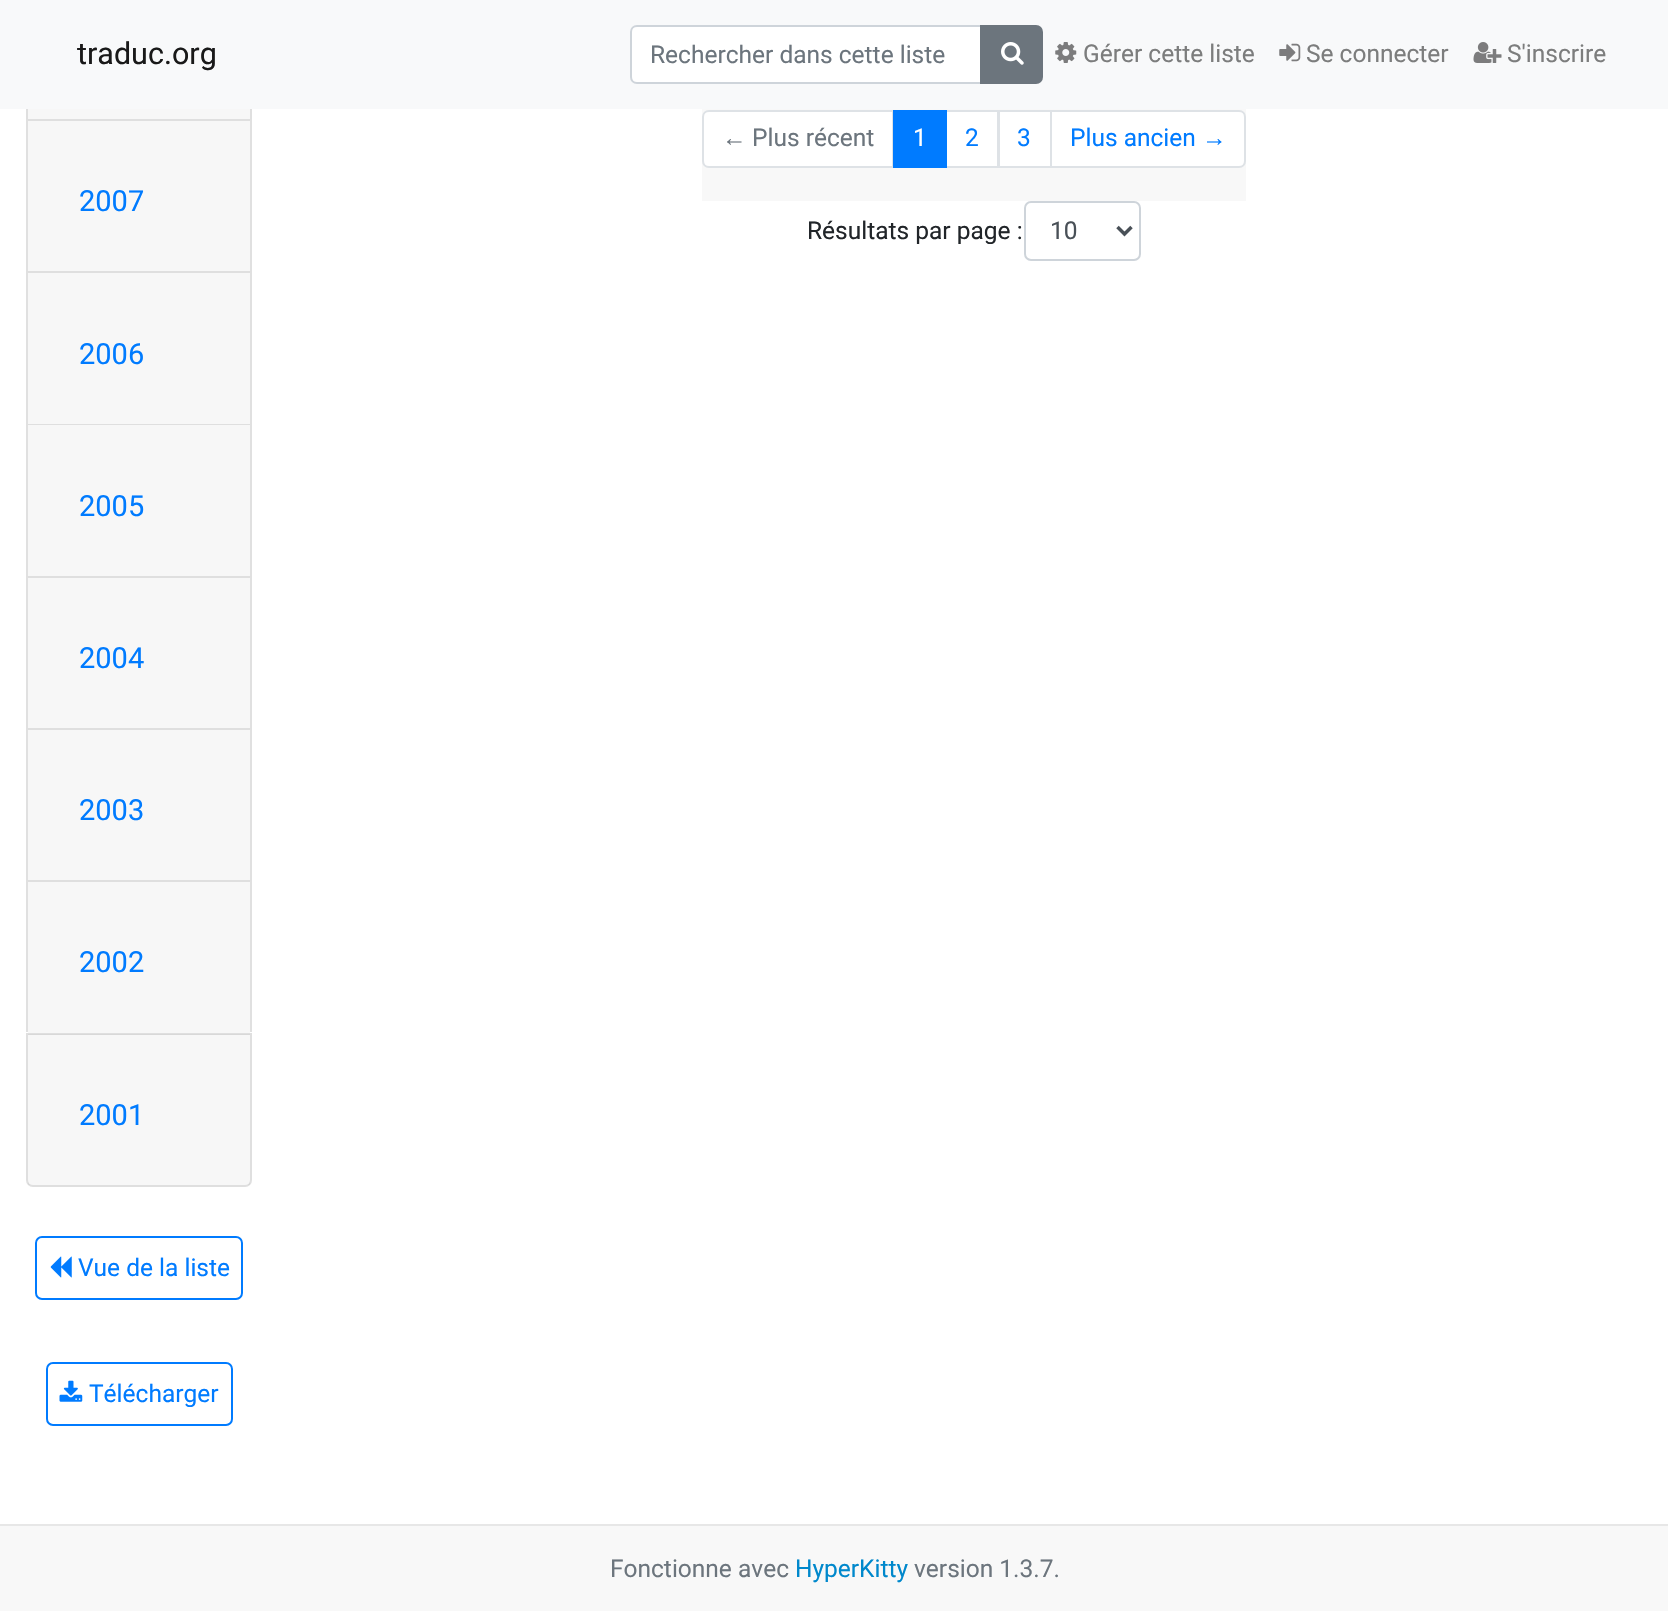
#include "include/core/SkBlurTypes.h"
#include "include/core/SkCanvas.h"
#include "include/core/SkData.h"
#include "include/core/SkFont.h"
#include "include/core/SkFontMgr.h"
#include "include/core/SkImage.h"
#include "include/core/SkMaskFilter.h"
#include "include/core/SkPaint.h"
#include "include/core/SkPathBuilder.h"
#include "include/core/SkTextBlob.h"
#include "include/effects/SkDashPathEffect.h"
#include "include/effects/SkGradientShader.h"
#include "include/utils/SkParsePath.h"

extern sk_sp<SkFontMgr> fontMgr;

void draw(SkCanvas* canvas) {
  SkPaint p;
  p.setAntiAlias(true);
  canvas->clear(SK_ColorWHITE);
  p.setColor(SkColorSetRGB(223, 223, 223));
  canvas->drawPath(SkPathBuilder().moveTo(252, -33).lineTo(252, 119).lineTo(250, 119).lineTo(250, -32).close().detach(), p);
  canvas->drawPath(SkPathBuilder().moveTo(26, 119).lineTo(26, -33).lineTo(28, -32).lineTo(28, 119).close().detach(), p);
  p.setColor(SkColorSetRGB(248, 249, 250));
  canvas->drawRect(SkRect::MakeLTRB(0, 0, 1668, 109), p);
  p.setColor(SK_ColorWHITE);
  canvas->drawPath(SkPathBuilder().moveTo(636, 26).lineTo(980, 26).lineTo(980, 82).lineTo(636, 82).cubicTo(634, 82, 632, 80, 632, 78).lineTo(632, 30).cubicTo(632, 28, 634, 26, 636, 26).close().detach(), p);
  p.setStyle(SkPaint::kStroke_Style);
  p.setStrokeWidth(2);
  p.setColor(SkColorSetRGB(206, 212, 218));
  canvas->drawPath(SkPathBuilder().moveTo(637, 26).lineTo(981, 26).lineTo(981, 83).lineTo(637, 83).cubicTo(633.5f, 83, 631, 80.5f, 631, 77).lineTo(631, 32).cubicTo(631, 28.5f, 633.5f, 26, 637, 26).close().detach(), p);
  p.setStyle(SkPaint::kFill_Style);
  p.setColor(SkColorSetRGB(108, 117, 125));
  canvas->drawPath(SkPathBuilder().moveTo(981, 26).lineTo(1036, 26).cubicTo(1039.5f, 26, 1042, 28.5f, 1042, 32).lineTo(1042, 77).cubicTo(1042, 80.5f, 1039.5f, 83, 1036, 83).lineTo(981, 83).close().detach(), p);
  p.setStyle(SkPaint::kStroke_Style);
  canvas->drawPath(SkPathBuilder().moveTo(981, 26).lineTo(1036, 26).cubicTo(1039.5f, 26, 1042, 28.5f, 1042, 32).lineTo(1042, 77).cubicTo(1042, 80.5f, 1039.5f, 83, 1036, 83).lineTo(981, 83).close().detach(), p);
  canvas->drawImageRect(SkImages::DeferredFromEncodedData(SkData::MakeFromFileName("images/1.png")), SkRect::MakeLTRB(1001, 42, 1024, 65), SkSamplingOptions());
  canvas->drawImageRect(SkImages::DeferredFromEncodedData(SkData::MakeFromFileName("images/2.png")), SkRect::MakeLTRB(1055, 42, 1077, 63), SkSamplingOptions());
  canvas->drawImageRect(SkImages::DeferredFromEncodedData(SkData::MakeFromFileName("images/3.png")), SkRect::MakeLTRB(1279, 43, 1301, 62), SkSamplingOptions());
  canvas->drawImageRect(SkImages::DeferredFromEncodedData(SkData::MakeFromFileName("images/4.png")), SkRect::MakeLTRB(1473, 42, 1502, 63), SkSamplingOptions());
  p.setStyle(SkPaint::kFill_Style);
  p.setColor(SkColorSetRGB(247, 247, 247));
  canvas->drawRect(SkRect::MakeLTRB(28, 109, 250, 119), p);
  p.setColor(SkColorSetRGB(223, 223, 223));
  canvas->drawPath(SkPathBuilder().moveTo(26, 119).lineTo(252, 119).lineTo(250, 121).lineTo(28, 121).close().detach(), p);
  p.setColor(SkColorSetARGB(31, 0, 0, 0));
  canvas->drawPath(SkPathBuilder().moveTo(252, 119).lineTo(252, 271).lineTo(250, 271).lineTo(250, 121).close().detach(), p);
  canvas->drawPath(SkPathBuilder().moveTo(26, 271).lineTo(26, 119).lineTo(28, 121).lineTo(28, 271).close().detach(), p);
  p.setColor(SkColorSetRGB(247, 247, 247));
  canvas->drawRect(SkRect::MakeLTRB(28, 121, 250, 271), p);
  p.setColor(SkColorSetRGB(223, 223, 223));
  canvas->drawPath(SkPathBuilder().moveTo(26, 271).lineTo(252, 271).lineTo(250, 273).lineTo(28, 273).close().detach(), p);
  p.setColor(SkColorSetARGB(31, 0, 0, 0));
  canvas->drawPath(SkPathBuilder().moveTo(252, 271).lineTo(252, 424).lineTo(250, 424).lineTo(250, 273).close().detach(), p);
  canvas->drawPath(SkPathBuilder().moveTo(26, 424).lineTo(26, 271).lineTo(28, 273).lineTo(28, 424).close().detach(), p);
  p.setColor(SkColorSetRGB(247, 247, 247));
  canvas->drawRect(SkRect::MakeLTRB(28, 273, 250, 424), p);
  p.setColor(SkColorSetRGB(223, 223, 223));
  canvas->drawPath(SkPathBuilder().moveTo(26, 424).lineTo(252, 424).lineTo(250, 425).lineTo(28, 425).close().detach(), p);
  p.setColor(SkColorSetARGB(31, 0, 0, 0));
  canvas->drawPath(SkPathBuilder().moveTo(252, 424).lineTo(252, 576).lineTo(250, 576).lineTo(250, 425).close().detach(), p);
  canvas->drawPath(SkPathBuilder().moveTo(26, 576).lineTo(26, 424).lineTo(28, 425).lineTo(28, 576).close().detach(), p);
  p.setColor(SkColorSetRGB(247, 247, 247));
  canvas->drawRect(SkRect::MakeLTRB(28, 425, 250, 576), p);
  p.setColor(SkColorSetRGB(223, 223, 223));
  canvas->drawPath(SkPathBuilder().moveTo(26, 576).lineTo(252, 576).lineTo(250, 578).lineTo(28, 578).close().detach(), p);
  p.setColor(SkColorSetARGB(31, 0, 0, 0));
  canvas->drawPath(SkPathBuilder().moveTo(252, 576).lineTo(252, 728).lineTo(250, 728).lineTo(250, 578).close().detach(), p);
  canvas->drawPath(SkPathBuilder().moveTo(26, 728).lineTo(26, 576).lineTo(28, 578).lineTo(28, 728).close().detach(), p);
  p.setColor(SkColorSetRGB(247, 247, 247));
  canvas->drawRect(SkRect::MakeLTRB(28, 578, 250, 728), p);
  p.setColor(SkColorSetRGB(223, 223, 223));
  canvas->drawPath(SkPathBuilder().moveTo(26, 728).lineTo(252, 728).lineTo(250, 730).lineTo(28, 730).close().detach(), p);
  p.setColor(SkColorSetARGB(31, 0, 0, 0));
  canvas->drawPath(SkPathBuilder().moveTo(252, 728).lineTo(252, 880).lineTo(250, 880).lineTo(250, 730).close().detach(), p);
  canvas->drawPath(SkPathBuilder().moveTo(26, 880).lineTo(26, 728).lineTo(28, 730).lineTo(28, 880).close().detach(), p);
  p.setColor(SkColorSetRGB(247, 247, 247));
  canvas->drawRect(SkRect::MakeLTRB(28, 730, 250, 880), p);
  p.setColor(SkColorSetRGB(223, 223, 223));
  canvas->drawPath(SkPathBuilder().moveTo(26, 880).lineTo(252, 880).lineTo(250, 882).lineTo(28, 882).close().detach(), p);
  p.setColor(SkColorSetARGB(31, 0, 0, 0));
  canvas->drawPath(SkPathBuilder().moveTo(252, 880).lineTo(252, 1032).lineTo(250, 1032).lineTo(250, 882).close().detach(), p);
  canvas->drawPath(SkPathBuilder().moveTo(26, 1032).lineTo(26, 880).lineTo(28, 882).lineTo(28, 1032).close().detach(), p);
  p.setColor(SkColorSetRGB(247, 247, 247));
  canvas->drawRect(SkRect::MakeLTRB(28, 882, 250, 1033), p);
  p.setStyle(SkPaint::kStroke_Style);
  p.setColor(SkColorSetRGB(223, 223, 223));
  canvas->drawPath(SkPathBuilder().moveTo(27, 1034).lineTo(251, 1034).lineTo(251, 1180).cubicTo(251, 1183.5f, 248.5f, 1186, 245, 1186).lineTo(33, 1186).cubicTo(29.5f, 1186, 27, 1183.5f, 27, 1180).close().detach(), p);
  p.setStyle(SkPaint::kFill_Style);
  p.setColor(SkColorSetARGB(8, 0, 0, 0));
  canvas->drawRect(SkRect::MakeLTRB(28, 1034, 250, 1185), p);
  p.setStyle(SkPaint::kStroke_Style);
  p.setColor(SkColorSetRGB(0, 123, 255));
  canvas->drawRoundRect(SkRect::MakeLTRB(36, 1237, 242, 1299), 6, 6, p);
  canvas->drawImageRect(SkImages::DeferredFromEncodedData(SkData::MakeFromFileName("images/5.png")), SkRect::MakeLTRB(50, 1256, 72, 1278), SkSamplingOptions());
  canvas->drawRoundRect(SkRect::MakeLTRB(47, 1363, 232, 1425), 6, 6, p);
  canvas->drawImageRect(SkImages::DeferredFromEncodedData(SkData::MakeFromFileName("images/6.png")), SkRect::MakeLTRB(59, 1380, 83, 1402), SkSamplingOptions());
  p.setStyle(SkPaint::kFill_Style);
  p.setColor(SkColorSetRGB(248, 248, 248));
  canvas->drawRect(SkRect::MakeLTRB(702, 109, 1246, 201), p);
  p.setColor(SK_ColorWHITE);
  canvas->drawPath(SkPathBuilder().moveTo(709, 111).lineTo(893, 111).lineTo(893, 167).lineTo(709, 167).cubicTo(705.5f, 167, 703, 164.5f, 703, 161).lineTo(703, 117).cubicTo(703, 113.5f, 705.5f, 111, 709, 111).close().detach(), p);
  p.setStyle(SkPaint::kStroke_Style);
  p.setColor(SkColorSetRGB(222, 226, 230));
  canvas->drawPath(SkPathBuilder().moveTo(709, 111).lineTo(893, 111).lineTo(893, 167).lineTo(709, 167).cubicTo(705.5f, 167, 703, 164.5f, 703, 161).lineTo(703, 117).cubicTo(703, 113.5f, 705.5f, 111, 709, 111).close().detach(), p);
  p.setStyle(SkPaint::kFill_Style);
  p.setColor(SK_ColorWHITE);
  canvas->drawRect(SkRect::MakeLTRB(946, 111, 998, 167), p);
  p.setStyle(SkPaint::kStroke_Style);
  p.setColor(SkColorSetRGB(222, 226, 230));
  canvas->drawRect(SkRect::MakeLTRB(946, 111, 998, 167), p);
  p.setStyle(SkPaint::kFill_Style);
  p.setColor(SkColorSetRGB(0, 123, 255));
  canvas->drawRect(SkRect::MakeLTRB(893, 110, 947, 168), p);
  p.setColor(SK_ColorWHITE);
  canvas->drawRect(SkRect::MakeLTRB(999, 111, 1051, 167), p);
  p.setStyle(SkPaint::kStroke_Style);
  p.setColor(SkColorSetRGB(222, 226, 230));
  canvas->drawRect(SkRect::MakeLTRB(999, 111, 1051, 167), p);
  p.setStyle(SkPaint::kFill_Style);
  p.setColor(SK_ColorWHITE);
  canvas->drawPath(SkPathBuilder().moveTo(1051, 111).lineTo(1239, 111).cubicTo(1242.5f, 111, 1245, 113.5f, 1245, 117).lineTo(1245, 161).cubicTo(1245, 164.5f, 1242.5f, 167, 1239, 167).lineTo(1051, 167).close().detach(), p);
  p.setStyle(SkPaint::kStroke_Style);
  p.setColor(SkColorSetRGB(222, 226, 230));
  canvas->drawPath(SkPathBuilder().moveTo(1051, 111).lineTo(1239, 111).cubicTo(1242.5f, 111, 1245, 113.5f, 1245, 117).lineTo(1245, 161).cubicTo(1245, 164.5f, 1242.5f, 167, 1239, 167).lineTo(1051, 167).close().detach(), p);
  p.setColor(SkColorSetRGB(206, 212, 218));
  canvas->drawRoundRect(SkRect::MakeLTRB(1025, 202, 1140, 260), 6, 6, p);
  p.setStrokeWidth(3.5f);
  p.setColor(SkColorSetRGB(73, 80, 87));
  canvas->drawPath(SkPathBuilder().moveTo(1117.5f, 227).lineTo(1124.5f, 234).lineTo(1131.5f, 227).detach(), p);
  p.setStyle(SkPaint::kFill_Style);
  p.setColor(SkColorSetRGB(248, 248, 248));
  canvas->drawRect(SkRect::MakeLTRB(0, 1526, 1668, 1611), p);
  p.setColor(SkColorSetRGB(231, 231, 231));
  canvas->drawRect(SkRect::MakeLTRB(0, 1524, 1668, 1526), p);
  SkFont font1(fontMgr->matchFamilyStyle("Roboto", SkFontStyle::Normal()), 30.5f);
  font1.setSubpixel(true);
  p.setColor(SkColorSetRGB(25, 25, 25));
  canvas->drawString("traduc.org", 77, 64, font1, p);
  SkFont font2(fontMgr->matchFamilyStyle("Roboto", SkFontStyle::Normal()), 24.5f);
  font2.setSubpixel(true);
  p.setColor(SkColorSetRGB(108, 117, 125));
  canvas->drawString("Rechercher dans cette liste", 650, 63, font2, p);
  p.setColor(SkColorSetRGB(124, 125, 125));
  canvas->drawString("Gérer cette liste", 1083, 62, font2, p);
  canvas->drawString("Se connecter", 1306, 62, font2, p);
  canvas->drawString("S'inscrire", 1507, 62, font2, p);
  SkFont font3(fontMgr->matchFamilyStyle("Roboto", SkFontStyle::Normal()), 29);
  font3.setSubpixel(true);
  p.setColor(SkColorSetRGB(0, 123, 255));
  canvas->drawString("2007", 79, 211, font3, p);
  canvas->drawString("2006", 79, 364, font3, p);
  canvas->drawString("2005", 79, 516, font3, p);
  canvas->drawString("2004", 79, 668, font3, p);
  canvas->drawString("2003", 79, 820, font3, p);
  canvas->drawString("2002", 79, 972, font3, p);
  canvas->drawString("2001", 79, 1125, font3, p);
  canvas->drawString("Vue de la liste", 78, 1276, font2, p);
  canvas->drawString("Télécharger", 89, 1402, font2, p);
  SkFont font4(fontMgr->matchFamilyStyle("Liberation Sans", SkFontStyle::Normal()), 24.5f);
  font4.setSubpixel(true);
  p.setColor(SkColorSetRGB(108, 117, 125));
  canvas->drawString("←", 722, 146, font4, p);
  canvas->drawString("Plus récent", 752, 146, font2, p);
  p.setColor(SK_ColorWHITE);
  canvas->drawString("1", 913, 146, font2, p);
  p.setColor(SkColorSetRGB(0, 123, 255));
  canvas->drawString("2", 965, 146, font2, p);
  canvas->drawString("3", 1017, 146, font2, p);
  canvas->drawString("Plus ancien", 1070, 146, font2, p);
  canvas->drawString("→", 1202, 146, font4, p);
  p.setColor(SkColorSetRGB(33, 37, 41));
  canvas->drawString("Résultats par page :", 807, 239, font2, p);
  p.setColor(SkColorSetRGB(73, 80, 87));
  canvas->drawString("10", 1050, 239, font2, p);
  p.setColor(SkColorSetRGB(108, 117, 125));
  canvas->drawString("Fonctionne avec", 610, 1577, font2, p);
  p.setColor(SkColorSetRGB(0, 136, 204));
  canvas->drawString("HyperKitty", 795, 1577, font2, p);
  p.setColor(SkColorSetRGB(108, 117, 125));
  canvas->drawString("version 1.3.7.", 914, 1577, font2, p);
}
